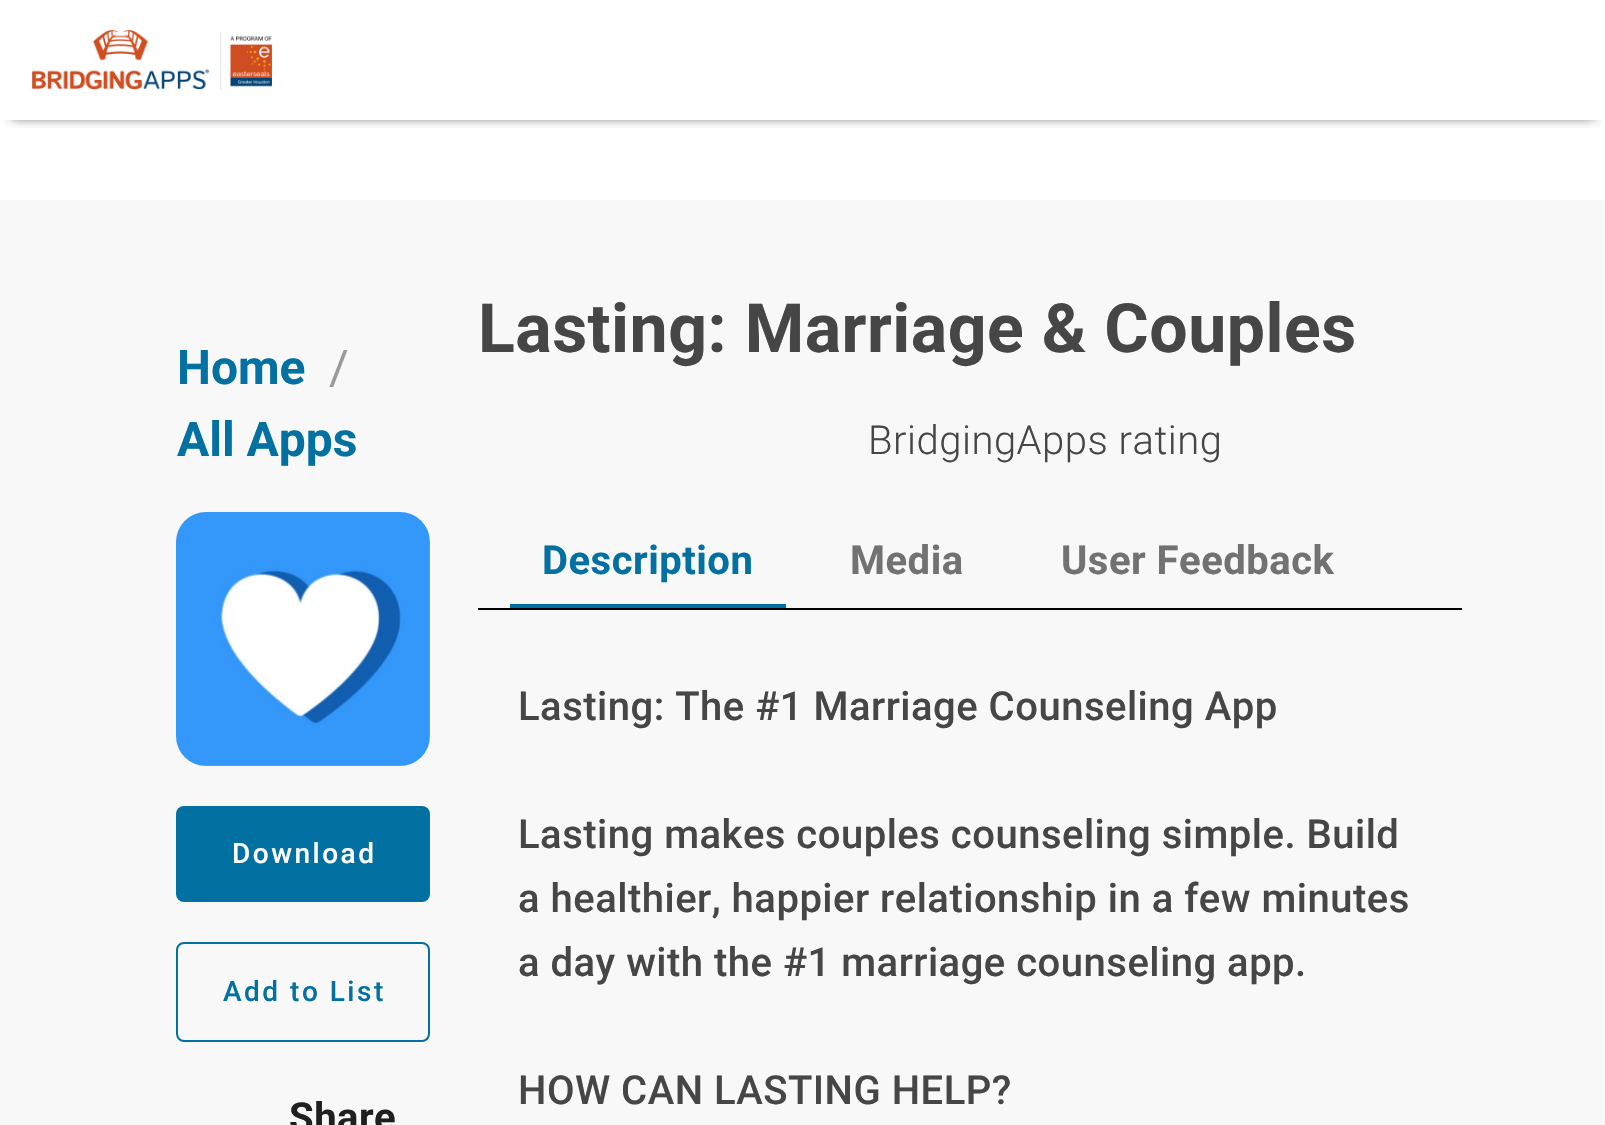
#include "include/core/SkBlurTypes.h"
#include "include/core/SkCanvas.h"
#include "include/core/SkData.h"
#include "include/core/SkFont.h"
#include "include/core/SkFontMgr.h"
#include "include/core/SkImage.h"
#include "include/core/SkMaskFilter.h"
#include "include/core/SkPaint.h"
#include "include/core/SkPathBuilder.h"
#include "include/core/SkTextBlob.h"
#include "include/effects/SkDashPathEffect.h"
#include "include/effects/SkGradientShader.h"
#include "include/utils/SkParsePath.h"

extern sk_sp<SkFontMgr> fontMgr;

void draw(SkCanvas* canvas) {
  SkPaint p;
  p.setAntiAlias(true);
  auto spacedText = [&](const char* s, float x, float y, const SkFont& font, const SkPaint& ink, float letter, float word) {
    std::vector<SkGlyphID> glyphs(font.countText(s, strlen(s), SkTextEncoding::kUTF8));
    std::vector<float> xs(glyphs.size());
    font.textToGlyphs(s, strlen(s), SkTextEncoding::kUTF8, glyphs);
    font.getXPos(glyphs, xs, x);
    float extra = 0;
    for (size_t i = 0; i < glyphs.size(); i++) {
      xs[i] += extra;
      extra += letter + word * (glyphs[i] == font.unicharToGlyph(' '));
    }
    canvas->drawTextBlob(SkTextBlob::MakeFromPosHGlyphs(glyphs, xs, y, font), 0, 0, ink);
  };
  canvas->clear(SK_ColorWHITE);
  canvas->save();
  canvas->clipRect(SkRect::MakeLTRB(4, 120, 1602, 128));
  p.setColor(SkColorSetRGB(34, 34, 34));
  p.setMaskFilter(SkMaskFilter::MakeBlur(kNormal_SkBlurStyle, 6));
  canvas->drawRect(SkRect::MakeLTRB(12, 20, 1594, 116), p);
  p.setMaskFilter(nullptr);
  canvas->restore();
  canvas->drawImageRect(SkImages::DeferredFromEncodedData(SkData::MakeFromFileName("images/1.png")), SkRect::MakeLTRB(32, 30, 272, 90), SkSamplingOptions());
  p.setColor(SkColorSetRGB(248, 248, 248));
  canvas->drawRect(SkRect::MakeLTRB(0, 200, 1605, 1125), p);
  canvas->drawImageRect(SkImages::DeferredFromEncodedData(SkData::MakeFromFileName("images/2.png")), SkRect::MakeLTRB(176, 512, 430, 766), SkSamplingOptions());
  p.setColor(SkColorSetRGB(2, 112, 160));
  canvas->drawRoundRect(SkRect::MakeLTRB(176, 806, 430, 902), 8, 8, p);
  p.setStyle(SkPaint::kStroke_Style);
  p.setStrokeWidth(2);
  canvas->drawRoundRect(SkRect::MakeLTRB(177, 943, 429, 1041), 7, 7, p);
  p.setStyle(SkPaint::kFill_Style);
  p.setColor(SK_ColorBLACK);
  canvas->drawRect(SkRect::MakeLTRB(478, 608, 1462, 610), p);
  p.setColor(SkColorSetRGB(2, 112, 160));
  canvas->drawRect(SkRect::MakeLTRB(510, 604, 786, 608), p);
  SkFont font1(fontMgr->matchFamilyStyle("Roboto", SkFontStyle::Bold()), 48);
  font1.setSubpixel(true);
  canvas->drawString("Home", 177, 384, font1, p);
  SkFont font2(fontMgr->matchFamilyStyle("Roboto", SkFontStyle::Normal()), 48);
  font2.setSubpixel(true);
  p.setColor(SkColorSetRGB(154, 154, 154));
  canvas->drawString("/", 329, 384, font2, p);
  p.setColor(SkColorSetRGB(2, 112, 160));
  canvas->drawString("All Apps", 177, 456, font1, p);
  SkFont font3(fontMgr->matchFamilyStyle("Roboto", SkFontStyle(500, SkFontStyle::kNormal_Width, SkFontStyle::kUpright_Slant)), 28);
  font3.setSubpixel(true);
  p.setColor(SK_ColorWHITE);
  spacedText("Download", 232, 863, font3, p, 2.5f, 0);
  p.setColor(SkColorSetRGB(2, 112, 160));
  spacedText("Add to List", 223, 1001, font3, p, 2.5f, 0);
  SkFont font4(fontMgr->matchFamilyStyle("Roboto", SkFontStyle::Bold()), 40);
  font4.setSubpixel(true);
  p.setColor(SkColorSetRGB(32, 32, 32));
  spacedText("Share", 289, 1131, font4, p, 0.5f, 0);
  SkFont font5(fontMgr->matchFamilyStyle("Roboto", SkFontStyle::Bold()), 68);
  font5.setSubpixel(true);
  p.setColor(SkColorSetRGB(71, 70, 70));
  spacedText("Lasting: Marriage & Couples", 478, 352, font5, p, 0.5f, 0);
  SkFont font6(fontMgr->matchFamilyStyle("Roboto", SkFontStyle(300, SkFontStyle::kNormal_Width, SkFontStyle::kUpright_Slant)), 40);
  font6.setSubpixel(true);
  spacedText("BridgingApps rating", 868, 454, font6, p, 0.5f, 0);
  p.setColor(SkColorSetRGB(2, 112, 160));
  spacedText("Description", 542, 574, font4, p, 0.5f, 0);
  p.setColor(SkColorSetRGB(114, 114, 114));
  spacedText("Media", 850, 574, font4, p, 0.5f, 0);
  spacedText("User Feedback", 1061, 574, font4, p, 0.5f, 0);
  SkFont font7(fontMgr->matchFamilyStyle("Roboto", SkFontStyle(500, SkFontStyle::kNormal_Width, SkFontStyle::kUpright_Slant)), 40);
  font7.setSubpixel(true);
  p.setColor(SkColorSetRGB(71, 70, 70));
  spacedText("Lasting: The #1 Marriage Counseling App", 518, 720, font7, p, 0.5f, 0);
  spacedText("Lasting makes couples counseling simple. Build", 518, 848, font7, p, 0.5f, 0);
  spacedText("a healthier, happier relationship in a few minutes", 518, 912, font7, p, 0.5f, 0);
  spacedText("a day with the #1 marriage counseling app.", 518, 976, font7, p, 0.5f, 0);
  spacedText("HOW CAN LASTING HELP?", 518, 1104, font7, p, 0.5f, 0);
}
